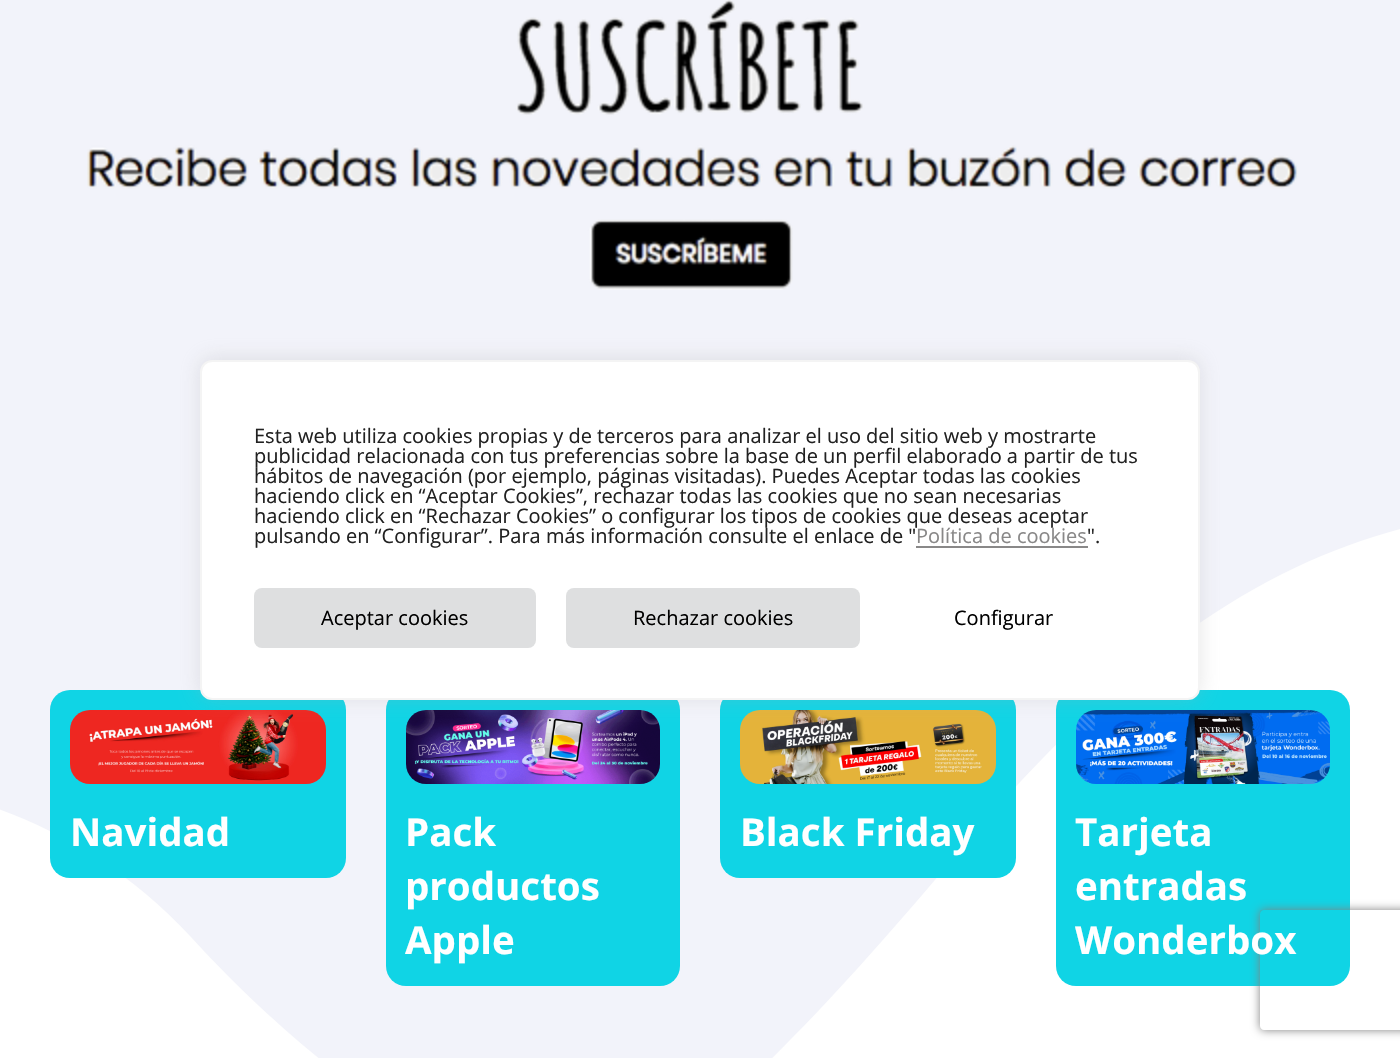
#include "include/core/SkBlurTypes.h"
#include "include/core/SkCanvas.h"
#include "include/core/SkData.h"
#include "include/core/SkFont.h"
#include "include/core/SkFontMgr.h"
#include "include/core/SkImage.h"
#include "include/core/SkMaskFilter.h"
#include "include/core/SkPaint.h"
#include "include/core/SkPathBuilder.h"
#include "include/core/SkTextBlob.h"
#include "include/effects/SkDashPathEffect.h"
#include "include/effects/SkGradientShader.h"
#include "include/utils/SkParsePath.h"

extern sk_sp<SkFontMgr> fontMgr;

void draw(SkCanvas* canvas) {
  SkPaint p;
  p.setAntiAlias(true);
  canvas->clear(SkColorSetRGB(242, 243, 250));
  p.setColor(SK_ColorWHITE);
  canvas->drawPath(SkPathBuilder().moveTo(508, 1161).cubicTo(564, 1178, 635, 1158, 694, 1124).cubicTo(752, 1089, 868, 959, 940, 874).cubicTo(1126, 648, 1268, 562, 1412, 526).cubicTo(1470, 511, 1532, 501, 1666, 543).cubicTo(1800, 585, 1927, 722, 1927, 722).lineTo(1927, 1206).lineTo(-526, 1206).lineTo(-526, 994).cubicTo(-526, 994, -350, 766, -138, 781).cubicTo(-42, 785, 90, 827, 191, 937).cubicTo(243, 994, 319, 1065, 386, 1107).cubicTo(453, 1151, 483, 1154, 508, 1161).close().detach(), p);
  p.setColor(SkColorSetRGB(16, 212, 229));
  canvas->drawRoundRect(SkRect::MakeLTRB(50, 690, 346, 878), 20, 20, p);
  canvas->drawImageRect(SkImages::DeferredFromEncodedData(SkData::MakeFromFileName("images/2.png")), SkRect::MakeLTRB(70, 710, 326, 784), SkSamplingOptions());
  canvas->drawRoundRect(SkRect::MakeLTRB(386, 690, 680, 986), 20, 20, p);
  canvas->drawImageRect(SkImages::DeferredFromEncodedData(SkData::MakeFromFileName("images/3.png")), SkRect::MakeLTRB(406, 710, 660, 784), SkSamplingOptions());
  canvas->drawRoundRect(SkRect::MakeLTRB(720, 690, 1016, 878), 20, 20, p);
  canvas->drawImageRect(SkImages::DeferredFromEncodedData(SkData::MakeFromFileName("images/4.png")), SkRect::MakeLTRB(740, 710, 996, 784), SkSamplingOptions());
  canvas->drawRoundRect(SkRect::MakeLTRB(1056, 690, 1350, 986), 20, 20, p);
  canvas->drawImageRect(SkImages::DeferredFromEncodedData(SkData::MakeFromFileName("images/5.png")), SkRect::MakeLTRB(1076, 710, 1330, 784), SkSamplingOptions());
  p.setColor(SkColorSetARGB(77, 172, 171, 171));
  p.setMaskFilter(SkMaskFilter::MakeBlur(kNormal_SkBlurStyle, 10));
  canvas->drawRoundRect(SkRect::MakeLTRB(200, 358, 1200, 698), 12, 12, p);
  p.setMaskFilter(nullptr);
  p.setColor(SK_ColorWHITE);
  canvas->drawRoundRect(SkRect::MakeLTRB(201, 361, 1199, 699), 11, 11, p);
  p.setStyle(SkPaint::kStroke_Style);
  p.setStrokeWidth(2);
  p.setColor(SkColorSetRGB(244, 244, 244));
  canvas->drawRoundRect(SkRect::MakeLTRB(201, 361, 1199, 699), 11, 11, p);
  p.setStyle(SkPaint::kFill_Style);
  p.setColor(SkColorSetRGB(137, 136, 136));
  canvas->drawRect(SkRect::MakeLTRB(916, 546, 1088, 548), p);
  p.setColor(SkColorSetRGB(222, 223, 224));
  canvas->drawRoundRect(SkRect::MakeLTRB(254, 588, 536, 648), 8, 8, p);
  canvas->drawRoundRect(SkRect::MakeLTRB(566, 588, 860, 648), 8, 8, p);
  canvas->drawImageRect(SkImages::DeferredFromEncodedData(SkData::MakeFromFileName("images/1.png")), SkRect::MakeLTRB(87, 0, 1298, 290), SkSamplingOptions());
  canvas->save();
  canvas->clipPath(SkPathBuilder(SkPathFillType::kEvenOdd).moveTo(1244, 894).lineTo(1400, 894).lineTo(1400, 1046).lineTo(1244, 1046).close().moveTo(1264, 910).lineTo(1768, 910).cubicTo(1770, 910, 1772, 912, 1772, 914).lineTo(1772, 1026).cubicTo(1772, 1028, 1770, 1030, 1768, 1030).lineTo(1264, 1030).cubicTo(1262, 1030, 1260, 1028, 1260, 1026).lineTo(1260, 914).cubicTo(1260, 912, 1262, 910, 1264, 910).close().detach(), true);
  p.setColor(SkColorSetRGB(128, 128, 128));
  p.setMaskFilter(SkMaskFilter::MakeBlur(kNormal_SkBlurStyle, 5));
  canvas->drawRoundRect(SkRect::MakeLTRB(1260, 910, 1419, 1030), 4, 4, p);
  p.setMaskFilter(nullptr);
  canvas->restore();
  SkFont font1(fontMgr->matchFamilyStyle("Open Sans", SkFontStyle::Normal()), 20);
  font1.setSubpixel(true);
  p.setColor(SkColorSetRGB(33, 33, 33));
  canvas->drawString("Esta web utiliza cookies propias y de terceros para analizar el uso del sitio web y mostrarte", 254, 443, font1, p);
  canvas->drawString("publicidad relacionada con tus preferencias sobre la base de un perfil elaborado a partir de tus", 254, 463, font1, p);
  canvas->drawString("hábitos de navegación (por ejemplo, páginas visitadas). Puedes Aceptar todas las cookies", 254, 483, font1, p);
  canvas->drawString("haciendo click en “Aceptar Cookies”, rechazar todas las cookies que no sean necesarias", 254, 503, font1, p);
  canvas->drawString("haciendo click en “Rechazar Cookies” o configurar los tipos de cookies que deseas aceptar", 254, 523, font1, p);
  canvas->drawString("pulsando en “Configurar”. Para más información consulte el enlace de \"", 254, 543, font1, p);
  p.setColor(SkColorSetRGB(137, 136, 136));
  canvas->drawString("Política de cookies", 916, 543, font1, p);
  p.setColor(SkColorSetRGB(33, 33, 33));
  canvas->drawString("\".", 1087, 543, font1, p);
  p.setColor(SK_ColorBLACK);
  canvas->drawString("Aceptar cookies", 321, 625, font1, p);
  canvas->drawString("Rechazar cookies", 633, 625, font1, p);
  canvas->drawString("Configurar", 954, 625, font1, p);
  SkFont font2(fontMgr->matchFamilyStyle("Open Sans", SkFontStyle::Bold()), 38.5f);
  font2.setSubpixel(true);
  p.setColor(SK_ColorWHITE);
  canvas->drawString("Navidad", 70, 846, font2, p);
  canvas->drawString("Pack", 405, 846, font2, p);
  canvas->drawString("productos", 405, 900, font2, p);
  canvas->drawString("Apple", 405, 954, font2, p);
  canvas->drawString("Black Friday", 740, 846, font2, p);
  canvas->drawString("Tarjeta", 1075, 846, font2, p);
  canvas->drawString("entradas", 1075, 900, font2, p);
  canvas->drawString("Wonderbox", 1075, 954, font2, p);
}
